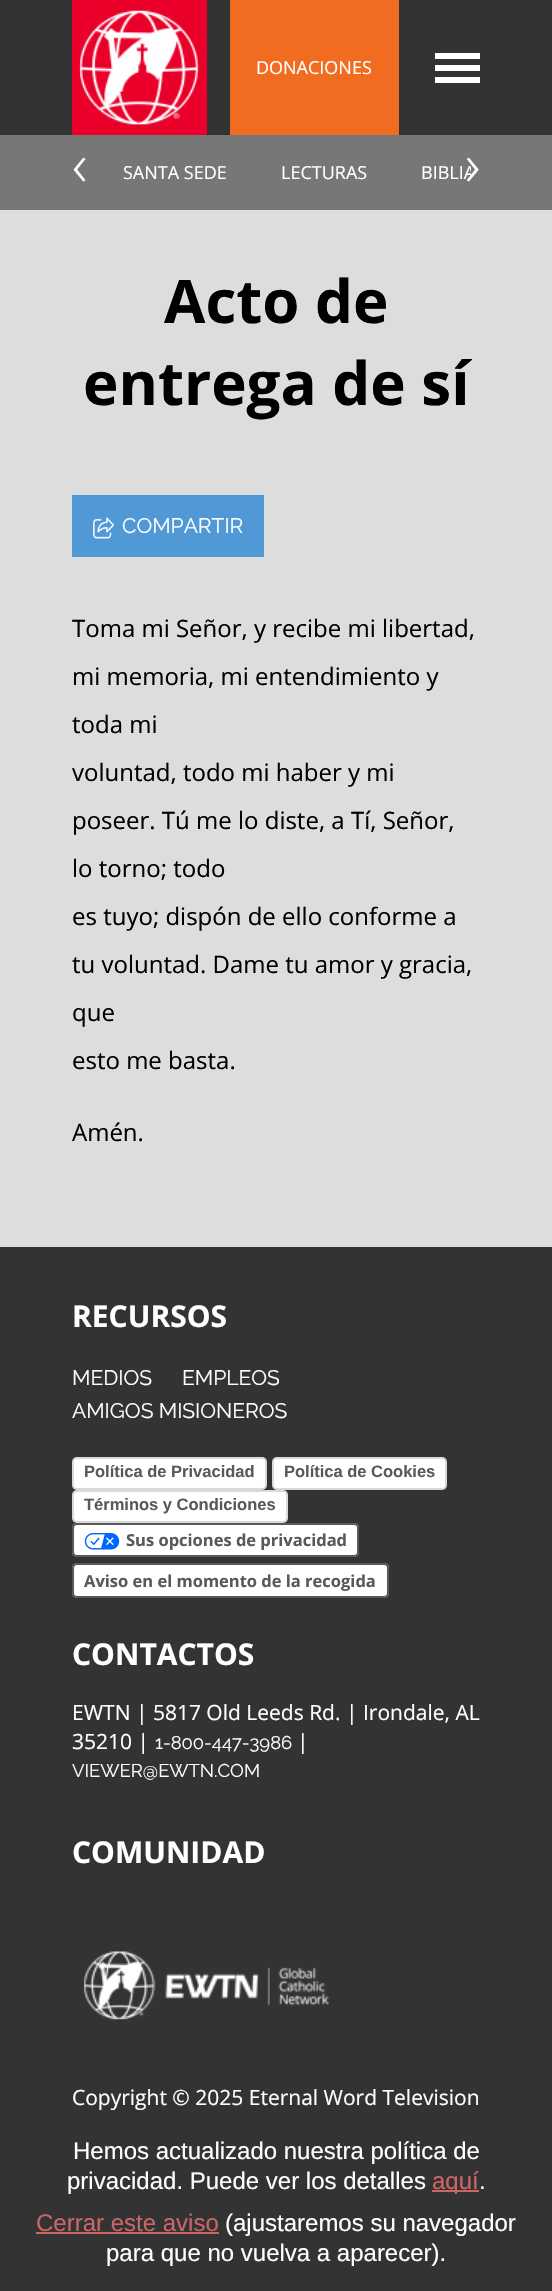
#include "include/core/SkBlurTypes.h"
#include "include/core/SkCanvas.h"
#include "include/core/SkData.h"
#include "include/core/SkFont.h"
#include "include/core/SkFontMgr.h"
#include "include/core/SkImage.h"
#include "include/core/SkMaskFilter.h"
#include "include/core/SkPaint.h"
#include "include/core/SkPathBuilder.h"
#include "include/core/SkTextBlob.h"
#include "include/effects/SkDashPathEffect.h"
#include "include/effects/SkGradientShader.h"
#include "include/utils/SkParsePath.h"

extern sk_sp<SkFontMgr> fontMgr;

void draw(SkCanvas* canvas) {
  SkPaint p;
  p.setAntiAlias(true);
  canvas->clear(SkColorSetRGB(221, 221, 221));
  p.setColor(SkColorSetRGB(51, 51, 51));
  canvas->drawRect(SkRect::MakeLTRB(0, 0, 552, 135), p);
  canvas->drawImageRect(SkImages::DeferredFromEncodedData(SkData::MakeFromFileName("images/1.png")), SkRect::MakeLTRB(72, 0, 207, 135), SkSamplingOptions());
  p.setColor(SkColorSetRGB(241, 108, 32));
  canvas->drawRect(SkRect::MakeLTRB(230, 0, 399, 135), p);
  p.setColor(SK_ColorWHITE);
  canvas->drawRect(SkRect::MakeLTRB(435, 53, 480, 59), p);
  canvas->drawRect(SkRect::MakeLTRB(435, 65, 480, 71), p);
  canvas->drawRect(SkRect::MakeLTRB(435, 77, 480, 83), p);
  p.setColor(SkColorSetRGB(119, 119, 119));
  canvas->drawRect(SkRect::MakeLTRB(0, 135, 552, 210), p);
  p.setColor(SkColorSetRGB(80, 153, 214));
  canvas->drawRect(SkRect::MakeLTRB(72, 495, 264, 557), p);
  canvas->drawImageRect(SkImages::DeferredFromEncodedData(SkData::MakeFromFileName("images/2.png")), SkRect::MakeLTRB(93, 517, 114, 539), SkSamplingOptions());
  p.setColor(SkColorSetRGB(51, 51, 51));
  canvas->drawRect(SkRect::MakeLTRB(0, 1247, 552, 2291), p);
  p.setColor(SK_ColorWHITE);
  canvas->drawRoundRect(SkRect::MakeLTRB(72, 1457, 267, 1490), 5, 5, p);
  p.setStyle(SkPaint::kStroke_Style);
  p.setStrokeWidth(2);
  p.setColor(SkColorSetARGB(38, 0, 0, 0));
  canvas->drawRoundRect(SkRect::MakeLTRB(73, 1458, 266, 1489), 4, 4, p);
  p.setStyle(SkPaint::kFill_Style);
  p.setColor(SK_ColorWHITE);
  canvas->drawRoundRect(SkRect::MakeLTRB(272, 1457, 447, 1490), 5, 5, p);
  p.setStyle(SkPaint::kStroke_Style);
  p.setColor(SkColorSetARGB(38, 0, 0, 0));
  canvas->drawRoundRect(SkRect::MakeLTRB(273, 1458, 446, 1489), 4, 4, p);
  p.setStyle(SkPaint::kFill_Style);
  p.setColor(SK_ColorWHITE);
  canvas->drawRoundRect(SkRect::MakeLTRB(72, 1490, 288, 1523), 5, 5, p);
  p.setStyle(SkPaint::kStroke_Style);
  p.setColor(SkColorSetARGB(38, 0, 0, 0));
  canvas->drawRoundRect(SkRect::MakeLTRB(73, 1491, 287, 1522), 4, 4, p);
  p.setStyle(SkPaint::kFill_Style);
  p.setColor(SK_ColorWHITE);
  canvas->drawRoundRect(SkRect::MakeLTRB(72, 1523, 359, 1557), 5, 5, p);
  p.setStyle(SkPaint::kStroke_Style);
  p.setColor(SkColorSetARGB(166, 0, 0, 0));
  canvas->drawRoundRect(SkRect::MakeLTRB(73, 1524, 358, 1556), 4, 4, p);
  canvas->drawImageRect(SkImages::DeferredFromEncodedData(SkData::MakeFromFileName("images/3.png")), SkRect::MakeLTRB(84, 1533, 120, 1550), SkSamplingOptions());
  p.setStyle(SkPaint::kFill_Style);
  p.setColor(SK_ColorWHITE);
  canvas->drawRoundRect(SkRect::MakeLTRB(72, 1563, 389, 1598), 5, 5, p);
  p.setStyle(SkPaint::kStroke_Style);
  p.setColor(SkColorSetARGB(166, 0, 0, 0));
  canvas->drawRoundRect(SkRect::MakeLTRB(73, 1564, 388, 1597), 4, 4, p);
  canvas->drawImageRect(SkImages::DeferredFromEncodedData(SkData::MakeFromFileName("images/4.png")), SkRect::MakeLTRB(83, 1951, 329, 2020), SkSamplingOptions());
  p.setStyle(SkPaint::kFill_Style);
  p.setColor(SkColorSetRGB(204, 102, 102));
  canvas->drawRect(SkRect::MakeLTRB(432, 2190, 479, 2192), p);
  canvas->drawRect(SkRect::MakeLTRB(36, 2232, 219, 2234), p);
  SkFont font1(fontMgr->matchFamilyStyle("Open Sans", SkFontStyle::Normal()), 18);
  font1.setSubpixel(true);
  p.setColor(SK_ColorWHITE);
  canvas->drawString("DONACIONES", 256, 74, font1, p);
  SkFont font2(fontMgr->matchFamilyStyle("Open Sans", SkFontStyle(300, SkFontStyle::kNormal_Width, SkFontStyle::kUpright_Slant)), 60);
  font2.setSubpixel(true);
  canvas->drawString("‹", 72, 186, font2, p);
  canvas->drawString("SANTA SEDE", 123, 179, font1, p);
  canvas->drawString("LECTURAS", 281, 179, font1, p);
  canvas->save();
  canvas->clipRect(SkRect::MakeLTRB(96, 135, 471, 210));
  canvas->drawString("BIBLIA", 421, 179, font1, p);
  canvas->restore();
  canvas->drawString("›", 465, 186, font2, p);
  SkFont font3(fontMgr->matchFamilyStyle("Open Sans", SkFontStyle::Bold()), 60);
  font3.setSubpixel(true);
  p.setColor(SK_ColorBLACK);
  canvas->drawString("Acto de", 164, 323, font3, p);
  canvas->drawString("entrega de sí", 83, 405, font3, p);
  SkFont font4(fontMgr->matchFamilyStyle("Raleway", SkFontStyle::Normal()), 21);
  font4.setSubpixel(true);
  p.setColor(SK_ColorWHITE);
  canvas->drawString("COMPARTIR", 122, 533, font4, p);
  SkFont font5(fontMgr->matchFamilyStyle("Open Sans", SkFontStyle::Normal()), 24);
  font5.setSubpixel(true);
  p.setColor(SK_ColorBLACK);
  canvas->drawString("Toma mi Señor, y recibe mi libertad,", 72, 637, font5, p);
  canvas->drawString("mi memoria, mi entendimiento y", 72, 685, font5, p);
  canvas->drawString("toda mi", 72, 733, font5, p);
  canvas->drawString("voluntad, todo mi haber y mi", 72, 781, font5, p);
  canvas->drawString("poseer. Tú me lo diste, a Tí, Señor,", 72, 829, font5, p);
  canvas->drawString("lo torno; todo", 72, 877, font5, p);
  canvas->drawString("es tuyo; dispón de ello conforme a", 72, 925, font5, p);
  canvas->drawString("tu voluntad. Dame tu amor y gracia,", 72, 973, font5, p);
  canvas->drawString("que", 72, 1021, font5, p);
  canvas->drawString("esto me basta.", 72, 1069, font5, p);
  canvas->drawString("Amén.", 72, 1141, font5, p);
  SkFont font6(fontMgr->matchFamilyStyle("Open Sans", SkFontStyle::Bold()), 30);
  font6.setSubpixel(true);
  p.setColor(SK_ColorWHITE);
  canvas->drawString("RECURSOS", 72, 1327, font6, p);
  canvas->drawString("MEDIOS", 72, 1385, font4, p);
  canvas->drawString("EMPLEOS", 182, 1385, font4, p);
  canvas->drawString("AMIGOS MISIONEROS", 72, 1418, font4, p);
  SkFont font7(fontMgr->matchFamilyStyle("Liberation Sans", SkFontStyle::Bold()), 16.5f);
  font7.setSubpixel(true);
  p.setColor(SkColorSetRGB(89, 89, 89));
  canvas->drawString("Política de Privacidad", 84, 1477, font7, p);
  canvas->drawString("Política de Cookies", 284, 1477, font7, p);
  canvas->drawString("Términos y Condiciones", 84, 1510, font7, p);
  SkFont font8(fontMgr->matchFamilyStyle("Open Sans", SkFontStyle::Bold()), 16.5f);
  font8.setSubpixel(true);
  canvas->drawString("Sus opciones de privacidad", 126, 1546, font8, p);
  canvas->drawString("Aviso en el momento de la recogida", 84, 1587, font8, p);
  p.setColor(SK_ColorWHITE);
  canvas->drawString("CONTACTOS", 72, 1665, font6, p);
  SkFont font9(fontMgr->matchFamilyStyle("Open Sans", SkFontStyle::Normal()), 21);
  font9.setSubpixel(true);
  canvas->drawString("EWTN | 5817 Old Leeds Rd. | Irondale, AL", 72, 1720, font9, p);
  canvas->drawString("35210 |", 72, 1749, font9, p);
  SkFont font10(fontMgr->matchFamilyStyle("Raleway", SkFontStyle::Normal()), 18.4f);
  font10.setSubpixel(true);
  canvas->drawString("1-800-447-3986", 155, 1749, font10, p);
  canvas->drawString("|", 297, 1749, font9, p);
  canvas->drawString("VIEWER@EWTN.COM", 72, 1777, font10, p);
  canvas->drawString("COMUNIDAD", 72, 1863, font6, p);
  canvas->drawString("Copyright © 2025 Eternal Word Television", 72, 2105, font9, p);
  SkFont font11(fontMgr->matchFamilyStyle("Liberation Sans", SkFontStyle::Normal()), 24);
  font11.setSubpixel(true);
  canvas->drawString("Hemos actualizado nuestra política de", 73, 2159, font11, p);
  canvas->drawString("privacidad. Puede ver los detalles", 67, 2189, font11, p);
  p.setColor(SkColorSetRGB(204, 102, 102));
  canvas->drawString("aquí", 432, 2189, font11, p);
  p.setColor(SK_ColorWHITE);
  canvas->drawString(".", 479, 2189, font11, p);
  p.setColor(SkColorSetRGB(204, 102, 102));
  canvas->drawString("Cerrar este aviso", 36, 2231, font11, p);
  p.setColor(SK_ColorWHITE);
  canvas->drawString("(ajustaremos su navegador", 225, 2231, font11, p);
  canvas->drawString("para que no vuelva a aparecer).", 106, 2261, font11, p);
}
